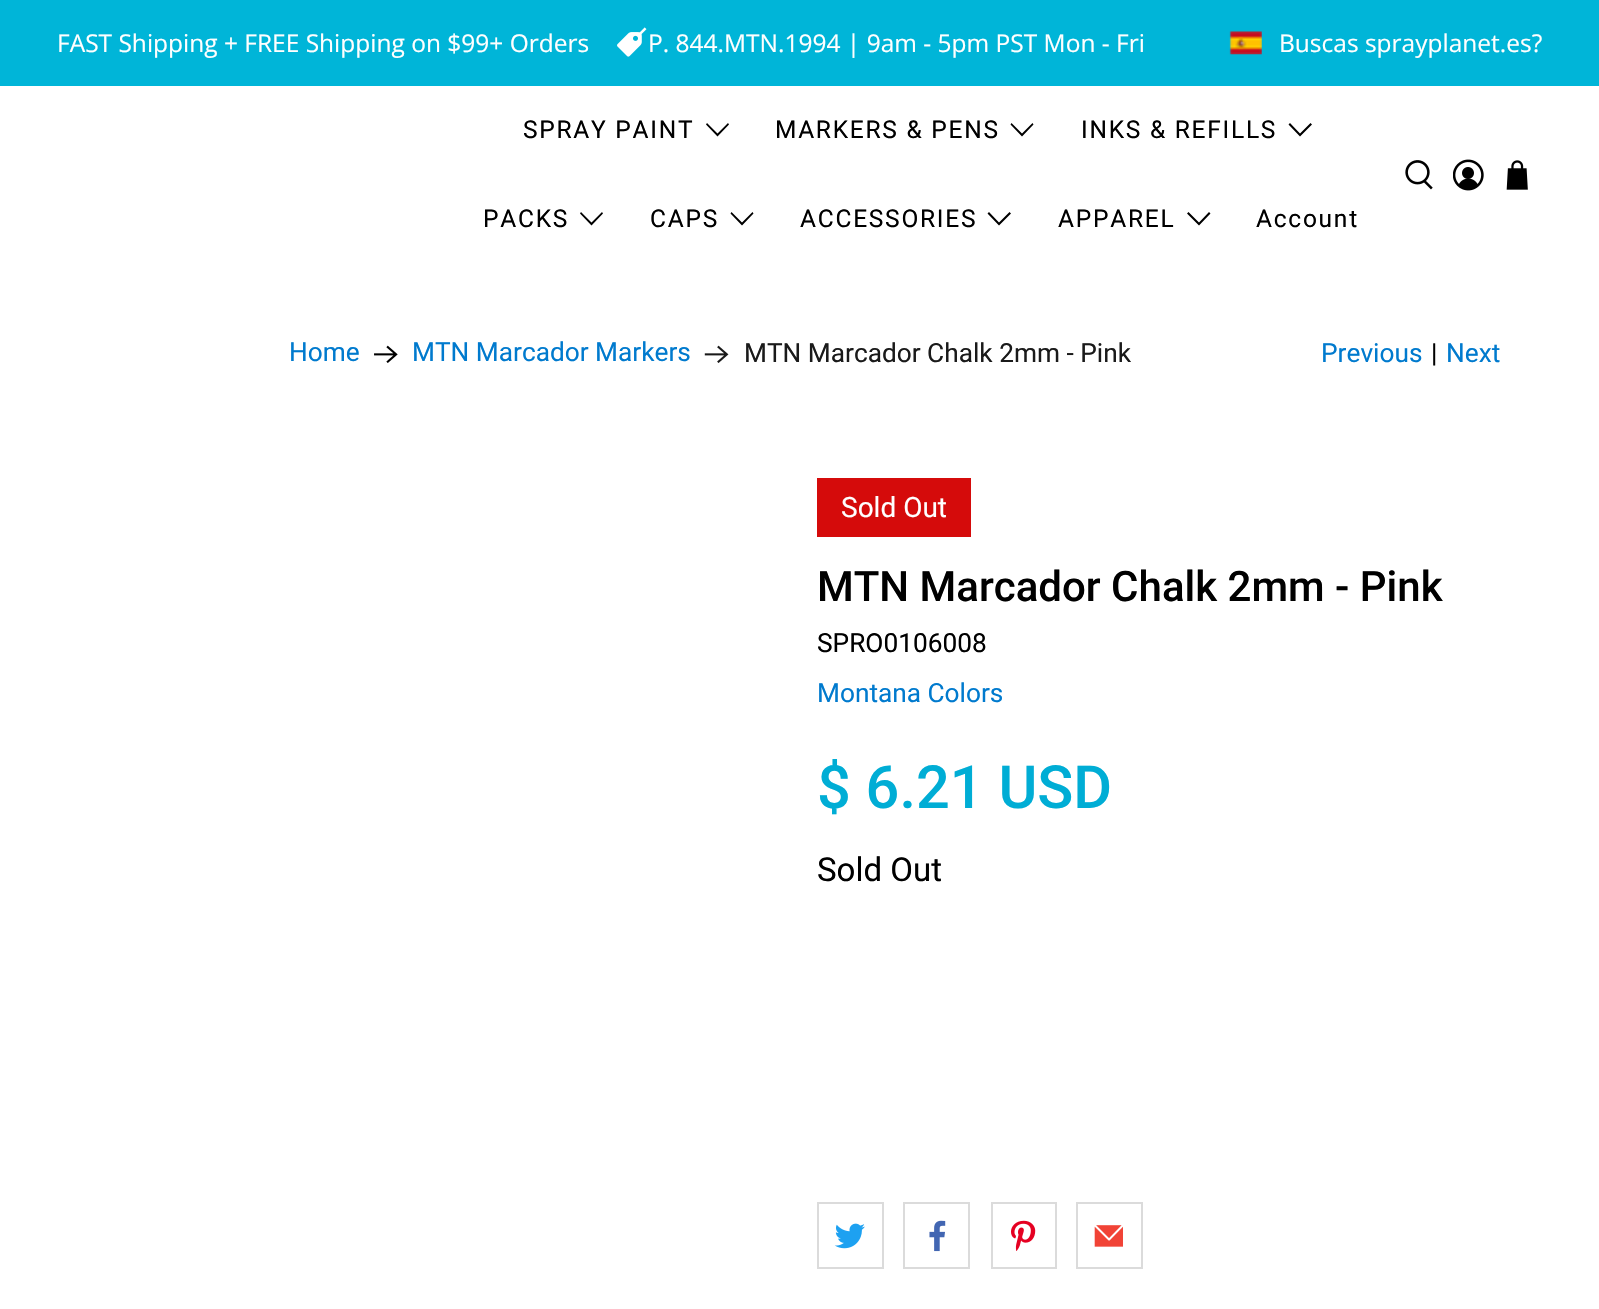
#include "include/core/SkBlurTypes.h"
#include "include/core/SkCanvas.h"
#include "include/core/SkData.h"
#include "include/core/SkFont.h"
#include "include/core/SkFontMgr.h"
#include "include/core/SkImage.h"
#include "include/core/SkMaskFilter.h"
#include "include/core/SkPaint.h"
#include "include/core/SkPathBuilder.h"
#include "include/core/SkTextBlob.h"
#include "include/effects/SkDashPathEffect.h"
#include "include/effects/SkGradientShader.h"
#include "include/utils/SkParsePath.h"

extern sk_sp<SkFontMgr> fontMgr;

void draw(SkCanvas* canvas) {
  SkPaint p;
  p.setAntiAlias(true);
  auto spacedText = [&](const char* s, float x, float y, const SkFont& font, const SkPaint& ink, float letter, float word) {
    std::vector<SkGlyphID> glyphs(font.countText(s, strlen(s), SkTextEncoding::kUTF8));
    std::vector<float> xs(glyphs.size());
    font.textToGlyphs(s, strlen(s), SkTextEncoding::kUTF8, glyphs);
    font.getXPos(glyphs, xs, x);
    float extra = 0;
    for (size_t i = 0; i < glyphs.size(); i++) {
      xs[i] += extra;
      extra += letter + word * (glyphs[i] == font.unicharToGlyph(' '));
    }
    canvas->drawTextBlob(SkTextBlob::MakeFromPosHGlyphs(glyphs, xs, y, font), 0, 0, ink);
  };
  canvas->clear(SK_ColorWHITE);
  p.setColor(SkColorSetRGB(0, 181, 216));
  canvas->drawRect(SkRect::MakeLTRB(0, 0, 1599, 86), p);
  canvas->drawImageRect(SkImages::DeferredFromEncodedData(SkData::MakeFromFileName("images/1.png")), SkRect::MakeLTRB(617, 27, 647, 57), SkSamplingOptions());
  canvas->drawImageRect(SkImages::DeferredFromEncodedData(SkData::MakeFromFileName("images/2.png")), SkRect::MakeLTRB(1229, 31, 1262, 55), SkSamplingOptions());
  p.setColor(SK_ColorBLACK);
  canvas->drawPath(SkPathBuilder().moveTo(717.5f, 136.5f).lineTo(706, 124.5f).lineTo(707, 123).lineTo(717.5f, 133.5f).lineTo(728, 123).lineTo(729, 124.5f).close().detach(), p);
  canvas->drawPath(SkPathBuilder().moveTo(1022, 136.5f).lineTo(1010.5f, 124.5f).lineTo(1011.5f, 123).lineTo(1022, 133.5f).lineTo(1032.5f, 123).lineTo(1033.5f, 124.5f).close().detach(), p);
  canvas->drawPath(SkPathBuilder().moveTo(1300, 136.5f).lineTo(1288.5f, 124.5f).lineTo(1290, 123).lineTo(1300, 133.5f).lineTo(1310.5f, 123).lineTo(1312, 124.5f).close().detach(), p);
  canvas->drawPath(SkPathBuilder().moveTo(591.5f, 225.5f).lineTo(580, 213.5f).lineTo(581, 212).lineTo(591.5f, 222.5f).lineTo(602, 212).lineTo(603, 213.5f).close().detach(), p);
  canvas->drawPath(SkPathBuilder().moveTo(742, 225.5f).lineTo(730.5f, 213.5f).lineTo(731.5f, 212).lineTo(742, 222.5f).lineTo(752.5f, 212).lineTo(753.5f, 213.5f).close().detach(), p);
  canvas->drawPath(SkPathBuilder().moveTo(999, 225.5f).lineTo(987.5f, 213.5f).lineTo(989, 212).lineTo(999, 222.5f).lineTo(1009.5f, 212).lineTo(1011, 213.5f).close().detach(), p);
  canvas->drawPath(SkPathBuilder().moveTo(1199, 225.5f).lineTo(1187, 213.5f).lineTo(1188.5f, 212).lineTo(1199, 222.5f).lineTo(1209, 212).lineTo(1210.5f, 213.5f).close().detach(), p);
  canvas->drawImageRect(SkImages::DeferredFromEncodedData(SkData::MakeFromFileName("images/3.png")), SkRect::MakeLTRB(1405, 160, 1433, 190), SkSamplingOptions());
  canvas->drawImageRect(SkImages::DeferredFromEncodedData(SkData::MakeFromFileName("images/4.png")), SkRect::MakeLTRB(1453, 159, 1484, 191), SkSamplingOptions());
  canvas->drawImageRect(SkImages::DeferredFromEncodedData(SkData::MakeFromFileName("images/5.png")), SkRect::MakeLTRB(1506, 160, 1528, 190), SkSamplingOptions());
  canvas->drawImageRect(SkImages::DeferredFromEncodedData(SkData::MakeFromFileName("images/6.png")), SkRect::MakeLTRB(374, 345, 398, 363), SkSamplingOptions());
  canvas->drawImageRect(SkImages::DeferredFromEncodedData(SkData::MakeFromFileName("images/7.png")), SkRect::MakeLTRB(704, 345, 729, 363), SkSamplingOptions());
  p.setColor(SkColorSetRGB(213, 11, 11));
  canvas->drawRect(SkRect::MakeLTRB(817, 478, 971, 537), p);
  p.setStyle(SkPaint::kStroke_Style);
  p.setStrokeWidth(2);
  p.setColor(SkColorSetRGB(219, 219, 219));
  canvas->drawRect(SkRect::MakeLTRB(818, 1203, 883, 1268), p);
  canvas->drawImageRect(SkImages::DeferredFromEncodedData(SkData::MakeFromFileName("images/8.png")), SkRect::MakeLTRB(834, 1223, 865, 1249), SkSamplingOptions());
  canvas->drawRect(SkRect::MakeLTRB(904, 1203, 969, 1268), p);
  canvas->drawImageRect(SkImages::DeferredFromEncodedData(SkData::MakeFromFileName("images/9.png")), SkRect::MakeLTRB(929, 1220, 946, 1252), SkSamplingOptions());
  canvas->drawRect(SkRect::MakeLTRB(992, 1203, 1056, 1268), p);
  canvas->drawImageRect(SkImages::DeferredFromEncodedData(SkData::MakeFromFileName("images/10.png")), SkRect::MakeLTRB(1011, 1220, 1036, 1251), SkSamplingOptions());
  canvas->drawRect(SkRect::MakeLTRB(1077, 1203, 1142, 1268), p);
  canvas->drawImageRect(SkImages::DeferredFromEncodedData(SkData::MakeFromFileName("images/11.png")), SkRect::MakeLTRB(1094, 1225, 1123, 1247), SkSamplingOptions());
  SkFont font1(fontMgr->matchFamilyStyle("Open Sans", SkFontStyle::Normal()), 24.5f);
  font1.setSubpixel(true);
  p.setStyle(SkPaint::kFill_Style);
  p.setColor(SK_ColorWHITE);
  canvas->drawString("FAST Shipping + FREE Shipping on $99+ Orders", 57, 52, font1, p);
  canvas->drawString("P. 844.MTN.1994 | 9am - 5pm PST Mon - Fri", 648, 52, font1, p);
  canvas->drawString("Buscas sprayplanet.es?", 1279, 52, font1, p);
  SkFont font2(fontMgr->matchFamilyStyle("Roboto", SkFontStyle::Normal()), 24.5f);
  font2.setSubpixel(true);
  p.setColor(SK_ColorBLACK);
  spacedText("SPRAY PAINT", 523, 138, font2, p, 1.75f, 0);
  spacedText("MARKERS & PENS", 775, 138, font2, p, 1.75f, 0);
  spacedText("INKS & REFILLS", 1081, 138, font2, p, 1.75f, 0);
  spacedText("PACKS", 483, 227, font2, p, 1.75f, 0);
  spacedText("CAPS", 650, 227, font2, p, 1.75f, 0);
  spacedText("ACCESSORIES", 800, 227, font2, p, 1.75f, 0);
  spacedText("APPAREL", 1058, 227, font2, p, 1.75f, 0);
  spacedText("Account", 1256, 227, font2, p, 1.75f, 0);
  SkFont font3(fontMgr->matchFamilyStyle("Roboto", SkFontStyle::Normal()), 26.25f);
  font3.setSubpixel(true);
  p.setColor(SkColorSetRGB(0, 122, 206));
  canvas->drawString("Home", 289, 361, font3, p);
  canvas->drawString("MTN Marcador Markers", 412, 361, font3, p);
  p.setColor(SkColorSetRGB(26, 26, 26));
  canvas->drawString("MTN Marcador Chalk 2mm - Pink", 744, 362, font3, p);
  p.setColor(SkColorSetRGB(0, 122, 206));
  canvas->drawString("Previous", 1321, 362, font3, p);
  p.setColor(SK_ColorBLACK);
  canvas->drawString("|", 1431, 362, font3, p);
  p.setColor(SkColorSetRGB(0, 122, 206));
  canvas->drawString("Next", 1446, 362, font3, p);
  SkFont font4(fontMgr->matchFamilyStyle("Roboto", SkFontStyle::Normal()), 28);
  font4.setSubpixel(true);
  p.setColor(SK_ColorWHITE);
  canvas->drawString("Sold Out", 841, 517, font4, p);
  SkFont font5(fontMgr->matchFamilyStyle("Roboto", SkFontStyle(500, SkFontStyle::kNormal_Width, SkFontStyle::kUpright_Slant)), 42);
  font5.setSubpixel(true);
  p.setColor(SK_ColorBLACK);
  canvas->drawString("MTN Marcador Chalk 2mm - Pink", 817, 601, font5, p);
  canvas->drawString("SPRO0106008", 817, 652, font3, p);
  p.setColor(SkColorSetRGB(0, 122, 206));
  canvas->drawString("Montana Colors", 817, 702, font3, p);
  SkFont font6(fontMgr->matchFamilyStyle("Roboto", SkFontStyle(500, SkFontStyle::kNormal_Width, SkFontStyle::kUpright_Slant)), 59.5f);
  font6.setSubpixel(true);
  p.setColor(SkColorSetRGB(0, 173, 213));
  canvas->drawString("$ 6.21 USD", 817, 808, font6, p);
  SkFont font7(fontMgr->matchFamilyStyle("Roboto", SkFontStyle::Normal()), 33);
  font7.setSubpixel(true);
  p.setColor(SK_ColorBLACK);
  canvas->drawString("Sold Out", 817, 881, font7, p);
}
